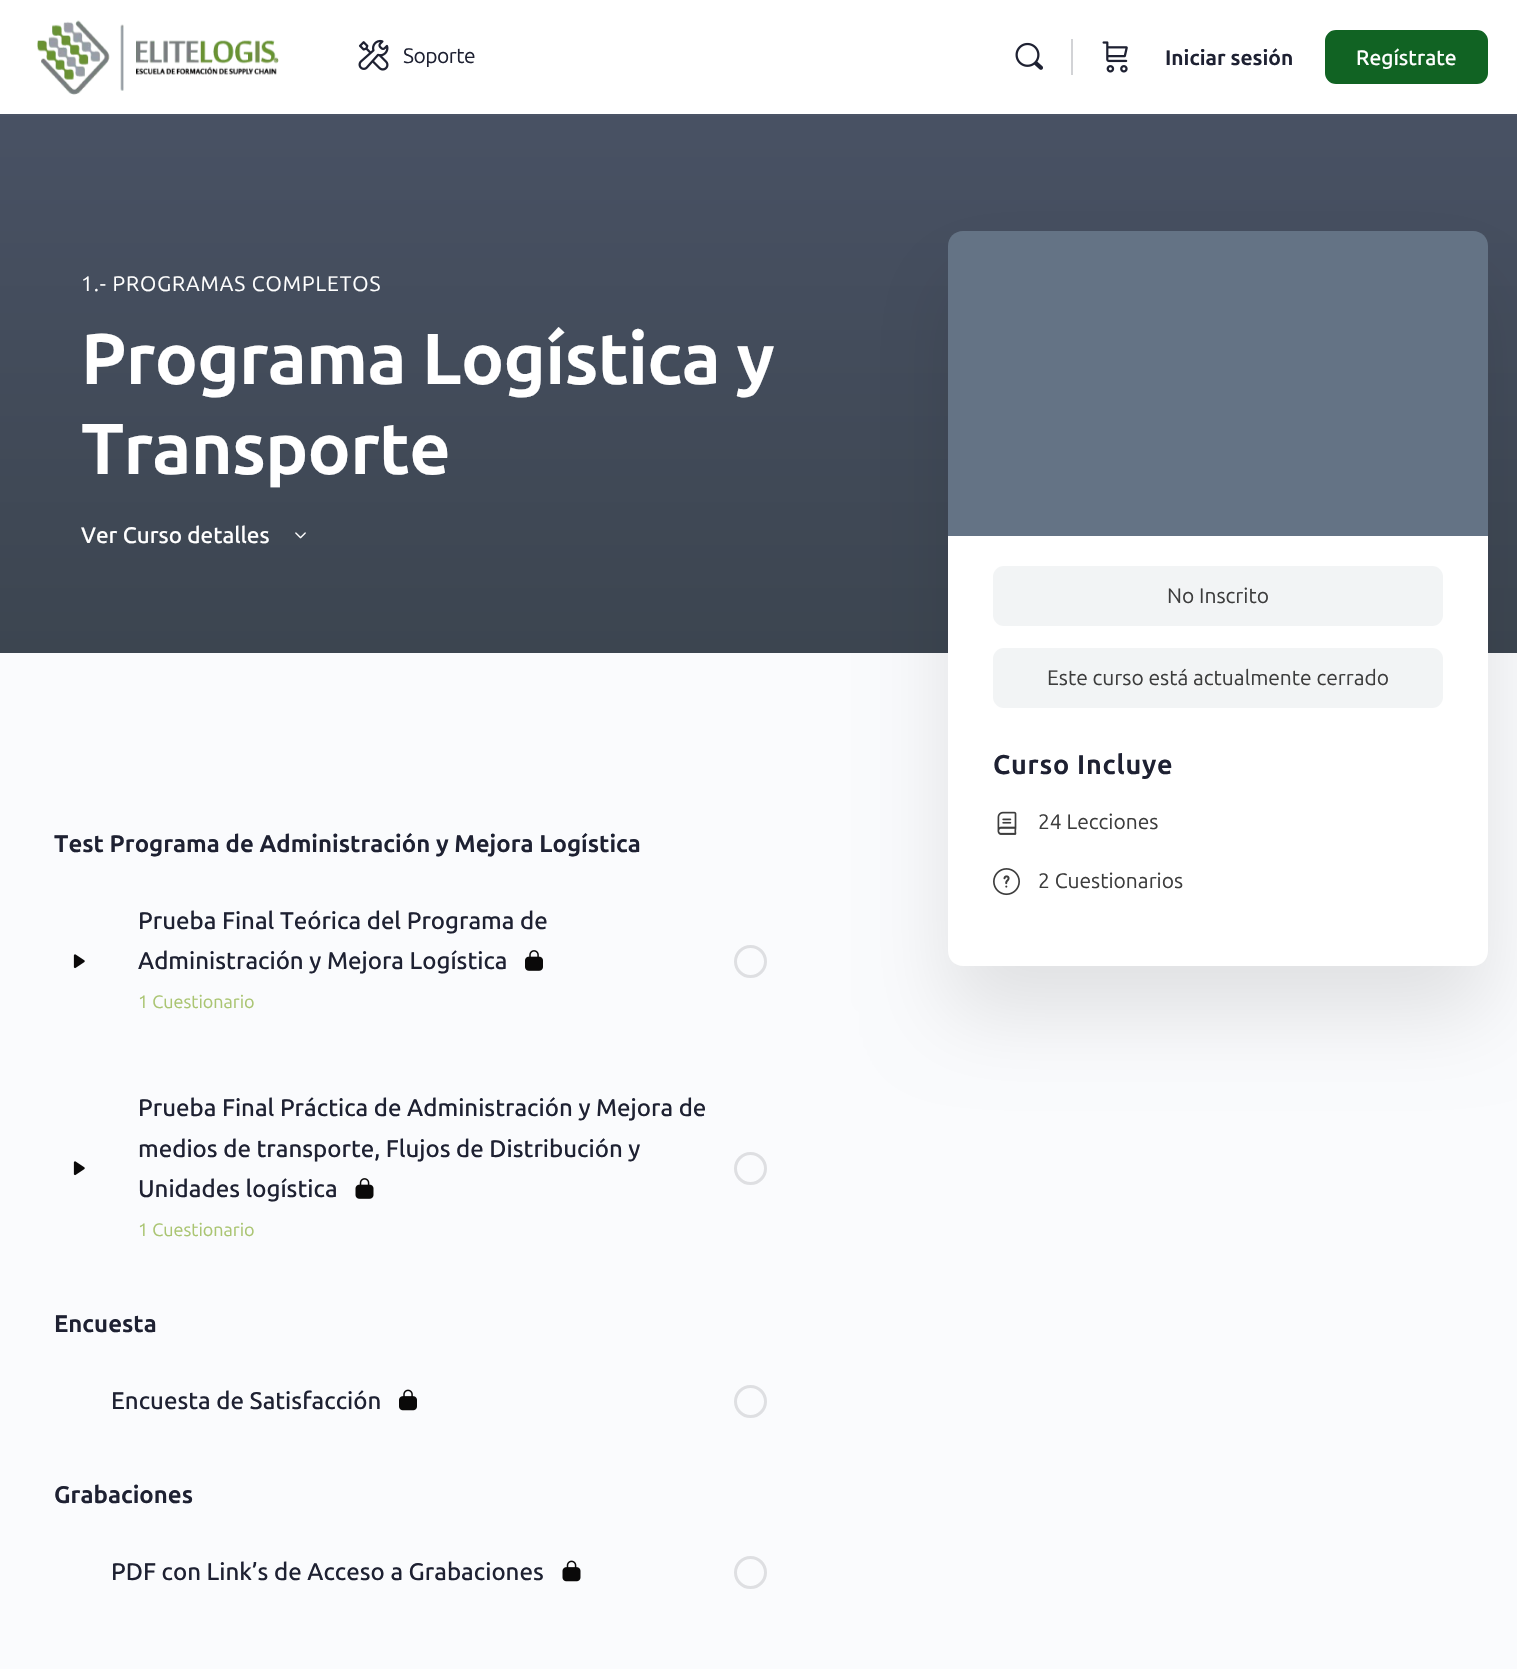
#include "include/core/SkBlurTypes.h"
#include "include/core/SkCanvas.h"
#include "include/core/SkData.h"
#include "include/core/SkFont.h"
#include "include/core/SkFontMgr.h"
#include "include/core/SkImage.h"
#include "include/core/SkMaskFilter.h"
#include "include/core/SkPaint.h"
#include "include/core/SkPathBuilder.h"
#include "include/core/SkTextBlob.h"
#include "include/effects/SkDashPathEffect.h"
#include "include/effects/SkGradientShader.h"
#include "include/utils/SkParsePath.h"

extern sk_sp<SkFontMgr> fontMgr;

void draw(SkCanvas* canvas) {
  SkPaint p;
  p.setAntiAlias(true);
  auto spacedText = [&](const char* s, float x, float y, const SkFont& font, const SkPaint& ink, float letter, float word) {
    std::vector<SkGlyphID> glyphs(font.countText(s, strlen(s), SkTextEncoding::kUTF8));
    std::vector<float> xs(glyphs.size());
    font.textToGlyphs(s, strlen(s), SkTextEncoding::kUTF8, glyphs);
    font.getXPos(glyphs, xs, x);
    float extra = 0;
    for (size_t i = 0; i < glyphs.size(); i++) {
      xs[i] += extra;
      extra += letter + word * (glyphs[i] == font.unicharToGlyph(' '));
    }
    canvas->drawTextBlob(SkTextBlob::MakeFromPosHGlyphs(glyphs, xs, y, font), 0, 0, ink);
  };
  canvas->clear(SkColorSetRGB(250, 251, 253));
  p.setColor(SkColorSetRGB(75, 84, 102));
  canvas->drawRect(SkRect::MakeLTRB(0, 114, 1517, 116), p);
  p.setColor(SK_ColorWHITE);
  canvas->drawRect(SkRect::MakeLTRB(0, 0, 1517, 114), p);
  canvas->drawImageRect(SkImages::DeferredFromEncodedData(SkData::MakeFromFileName("images/1.png")), SkRect::MakeLTRB(37, 20, 279, 95), SkSamplingOptions());
  canvas->drawImageRect(SkImages::DeferredFromEncodedData(SkData::MakeFromFileName("images/2.png")), SkRect::MakeLTRB(358, 39, 389, 71), SkSamplingOptions());
  canvas->drawImageRect(SkImages::DeferredFromEncodedData(SkData::MakeFromFileName("images/3.png")), SkRect::MakeLTRB(1015, 42, 1043, 70), SkSamplingOptions());
  p.setColor(SkColorSetRGB(210, 211, 214));
  canvas->drawRect(SkRect::MakeLTRB(1071, 39, 1073, 75), p);
  canvas->drawImageRect(SkImages::DeferredFromEncodedData(SkData::MakeFromFileName("images/4.png")), SkRect::MakeLTRB(1102, 41, 1128, 73), SkSamplingOptions());
  p.setColor(SkColorSetRGB(17, 99, 35));
  canvas->drawRoundRect(SkRect::MakeLTRB(1326, 31, 1487, 83), 10, 10, p);
  p.setStyle(SkPaint::kStroke_Style);
  p.setStrokeWidth(2);
  canvas->drawRoundRect(SkRect::MakeLTRB(1326, 31, 1487, 83), 10, 10, p);
  p.setStyle(SkPaint::kFill_Style);
  {
    const SkColor colors[] = {SkColorSetRGB(72, 81, 99), SkColorSetRGB(60, 69, 80)};
    const float stops[] = {0.04f, 1};
    const SkPoint ends[] = {{759, 114}, {759, 653}};
    p.setShader(SkGradientShader::MakeLinear(ends, colors, stops, 2, SkTileMode::kClamp));
    p.setAlpha(255);
  }
  canvas->drawRect(SkRect::MakeLTRB(0, 116, 1517, 653), p);
  canvas->drawImageRect(SkImages::DeferredFromEncodedData(SkData::MakeFromFileName("images/5.png")), SkRect::MakeLTRB(295, 532, 306, 539), SkSamplingOptions());
  p.setShader(nullptr);
  p.setColor(SkColorSetARGB(26, 0, 0, 0));
  p.setMaskFilter(SkMaskFilter::MakeBlur(kNormal_SkBlurStyle, 40.5f));
  canvas->drawRoundRect(SkRect::MakeLTRB(948, 279, 1488, 1014), 15, 15, p);
  p.setMaskFilter(nullptr);
  p.setColor(SkColorSetRGB(100, 115, 133));
  canvas->drawPath(SkPathBuilder().moveTo(963, 231).lineTo(1473, 231).cubicTo(1481.5f, 231, 1488, 237.5f, 1488, 246).lineTo(1488, 536).lineTo(948, 536).lineTo(948, 246).cubicTo(948, 237.5f, 954.5f, 231, 963, 231).close().detach(), p);
  p.setColor(SK_ColorWHITE);
  canvas->drawPath(SkPathBuilder().moveTo(948, 536).lineTo(1488, 536).lineTo(1488, 951).cubicTo(1488, 959.5f, 1481.5f, 966, 1473, 966).lineTo(963, 966).cubicTo(954.5f, 966, 948, 959.5f, 948, 951).close().detach(), p);
  p.setColor(SkColorSetRGB(242, 244, 245));
  canvas->drawRoundRect(SkRect::MakeLTRB(993, 566, 1443, 626), 11, 11, p);
  canvas->drawRoundRect(SkRect::MakeLTRB(993, 648, 1443, 708), 11, 11, p);
  canvas->drawImageRect(SkImages::DeferredFromEncodedData(SkData::MakeFromFileName("images/6.png")), SkRect::MakeLTRB(997, 811, 1017, 835), SkSamplingOptions());
  canvas->drawImageRect(SkImages::DeferredFromEncodedData(SkData::MakeFromFileName("images/7.png")), SkRect::MakeLTRB(993, 868, 1020, 896), SkSamplingOptions());
  canvas->drawImageRect(SkImages::DeferredFromEncodedData(SkData::MakeFromFileName("images/8.png")), SkRect::MakeLTRB(73, 954, 85, 969), SkSamplingOptions());
  canvas->drawImageRect(SkImages::DeferredFromEncodedData(SkData::MakeFromFileName("images/9.png")), SkRect::MakeLTRB(525, 950, 543, 971), SkSamplingOptions());
  p.setStyle(SkPaint::kStroke_Style);
  p.setStrokeWidth(3);
  p.setColor(SkColorSetRGB(222, 223, 226));
  canvas->drawCircle(750.5f, 961.5f, 15, p);
  canvas->drawImageRect(SkImages::DeferredFromEncodedData(SkData::MakeFromFileName("images/8.png")), SkRect::MakeLTRB(73, 1161, 85, 1176), SkSamplingOptions());
  canvas->drawImageRect(SkImages::DeferredFromEncodedData(SkData::MakeFromFileName("images/10.png")), SkRect::MakeLTRB(355, 1178, 374, 1199), SkSamplingOptions());
  canvas->drawCircle(750.5f, 1168.5f, 15, p);
  canvas->drawImageRect(SkImages::DeferredFromEncodedData(SkData::MakeFromFileName("images/11.png")), SkRect::MakeLTRB(399, 1389, 417, 1411), SkSamplingOptions());
  canvas->drawCircle(750.5f, 1401.5f, 15, p);
  canvas->drawImageRect(SkImages::DeferredFromEncodedData(SkData::MakeFromFileName("images/12.png")), SkRect::MakeLTRB(562, 1560, 581, 1582), SkSamplingOptions());
  canvas->drawCircle(750.5f, 1572.5f, 15, p);
  SkFont font1(fontMgr->matchFamilyStyle("Ubuntu", SkFontStyle::Normal()), 21);
  font1.setSubpixel(true);
  p.setStyle(SkPaint::kFill_Style);
  p.setColor(SkColorSetRGB(30, 33, 50));
  spacedText("Soporte", 403, 63, font1, p, -0.5f, 0);
  SkFont font2(fontMgr->matchFamilyStyle("Ubuntu", SkFontStyle::Bold()), 21);
  font2.setSubpixel(true);
  canvas->drawString("Iniciar sesión", 1165, 65, font2, p);
  SkFont font3(fontMgr->matchFamilyStyle("Ubuntu", SkFontStyle(500, SkFontStyle::kNormal_Width, SkFontStyle::kUpright_Slant)), 21);
  font3.setSubpixel(true);
  p.setColor(SK_ColorWHITE);
  canvas->drawString("Regístrate", 1356, 65, font3, p);
  spacedText("1.- PROGRAMAS COMPLETOS", 81, 291, font1, p, 0.9f, 0);
  SkFont font4(fontMgr->matchFamilyStyle("Ubuntu", SkFontStyle::Bold()), 72);
  font4.setSubpixel(true);
  spacedText("Programa Logística y", 81, 384, font4, p, -0.75f, 0);
  spacedText("Transporte", 81, 474, font4, p, -0.75f, 0);
  SkFont font5(fontMgr->matchFamilyStyle("Ubuntu", SkFontStyle(500, SkFontStyle::kNormal_Width, SkFontStyle::kUpright_Slant)), 22.5f);
  font5.setSubpixel(true);
  canvas->drawString("Ver Curso detalles", 81, 543, font5, p);
  p.setColor(SkColorSetRGB(61, 61, 61));
  canvas->drawString("No Inscrito", 1167, 603, font1, p);
  canvas->drawString("Este curso está actualmente cerrado", 1047, 685, font1, p);
  SkFont font6(fontMgr->matchFamilyStyle("Ubuntu", SkFontStyle::Bold()), 27);
  font6.setSubpixel(true);
  p.setColor(SkColorSetRGB(30, 33, 50));
  spacedText("Curso Incluye", 993, 774, font6, p, 0.75f, 0);
  p.setColor(SkColorSetRGB(61, 61, 61));
  canvas->drawString("24 Lecciones", 1038, 829, font1, p);
  canvas->drawString("2 Cuestionarios", 1038, 888, font1, p);
  SkFont font7(fontMgr->matchFamilyStyle("Ubuntu", SkFontStyle::Bold()), 24);
  font7.setSubpixel(true);
  p.setColor(SkColorSetRGB(30, 33, 50));
  canvas->drawString("Test Programa de Administración y Mejora Logística", 54, 852, font7, p);
  SkFont font8(fontMgr->matchFamilyStyle("Ubuntu", SkFontStyle(500, SkFontStyle::kNormal_Width, SkFontStyle::kUpright_Slant)), 24);
  font8.setSubpixel(true);
  canvas->drawString("Prueba Final Teórica del Programa de", 138, 929, font8, p);
  canvas->drawString("Administración y Mejora Logística", 138, 969, font8, p);
  SkFont font9(fontMgr->matchFamilyStyle("Ubuntu", SkFontStyle::Normal()), 18);
  font9.setSubpixel(true);
  p.setColor(SkColorSetRGB(170, 197, 114));
  canvas->drawString("1 Cuestionario", 138, 1008, font9, p);
  p.setColor(SkColorSetRGB(30, 33, 50));
  canvas->drawString("Prueba Final Práctica de Administración y Mejora de", 138, 1116, font8, p);
  canvas->drawString("medios de transporte, Flujos de Distribución y", 138, 1157, font8, p);
  canvas->drawString("Unidades logística", 138, 1197, font8, p);
  p.setColor(SkColorSetRGB(170, 197, 114));
  canvas->drawString("1 Cuestionario", 138, 1236, font9, p);
  p.setColor(SkColorSetRGB(30, 33, 50));
  canvas->drawString("Encuesta", 54, 1332, font7, p);
  canvas->drawString("Encuesta de Satisfacción", 111, 1409, font8, p);
  canvas->drawString("Grabaciones", 54, 1503, font7, p);
  canvas->drawString("PDF con Link’s de Acceso a Grabaciones", 111, 1580, font8, p);
}
